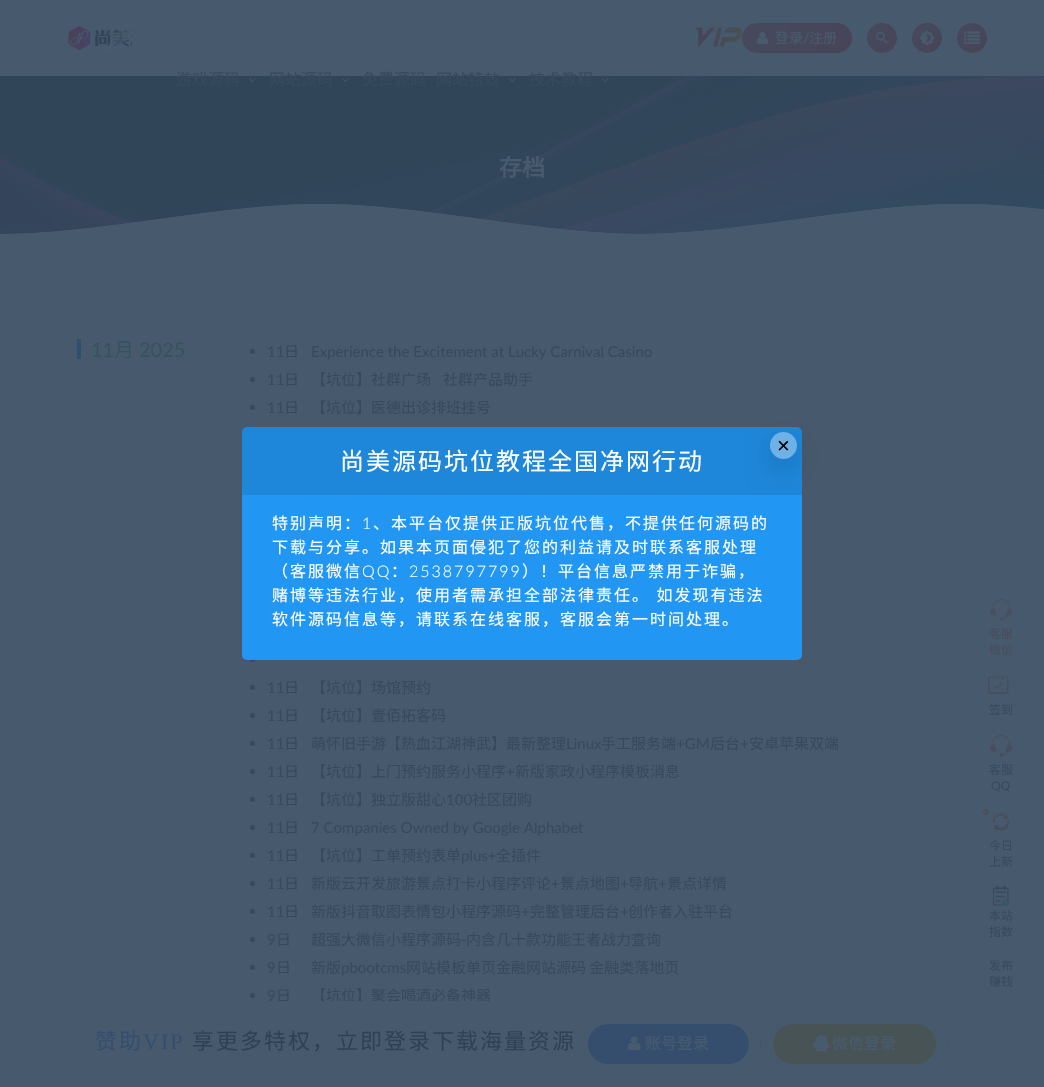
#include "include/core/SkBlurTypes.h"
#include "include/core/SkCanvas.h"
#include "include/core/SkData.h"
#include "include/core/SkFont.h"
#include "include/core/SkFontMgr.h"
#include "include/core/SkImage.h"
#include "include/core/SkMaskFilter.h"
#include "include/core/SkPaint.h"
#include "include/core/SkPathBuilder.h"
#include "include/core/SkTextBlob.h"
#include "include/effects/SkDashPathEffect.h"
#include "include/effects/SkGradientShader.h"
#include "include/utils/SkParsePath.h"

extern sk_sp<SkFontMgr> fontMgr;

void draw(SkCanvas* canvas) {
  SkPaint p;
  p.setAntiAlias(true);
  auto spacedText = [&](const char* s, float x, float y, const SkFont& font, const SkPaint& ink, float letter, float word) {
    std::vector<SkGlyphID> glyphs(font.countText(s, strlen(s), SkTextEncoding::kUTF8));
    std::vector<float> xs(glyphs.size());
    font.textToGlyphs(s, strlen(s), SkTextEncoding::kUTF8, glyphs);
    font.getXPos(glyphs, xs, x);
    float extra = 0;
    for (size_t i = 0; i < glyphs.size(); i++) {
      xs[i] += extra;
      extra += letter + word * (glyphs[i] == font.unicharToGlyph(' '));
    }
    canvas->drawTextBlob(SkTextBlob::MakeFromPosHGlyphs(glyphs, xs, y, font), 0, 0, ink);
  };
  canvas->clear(SkColorSetRGB(71, 90, 109));
  canvas->drawImageRect(SkImages::DeferredFromEncodedData(SkData::MakeFromFileName("images/1.png")), SkRect::MakeLTRB(68, 25, 132, 50), SkSamplingOptions());
  canvas->save();
  canvas->clipRect(SkRect::MakeLTRB(57, 23, 132, 53));
  p.setColor(SkColorSetARGB(128, 72, 91, 110));
  canvas->drawPath(SkPathBuilder().moveTo(75, 77).lineTo(181, -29).lineTo(189, -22).lineTo(83, 84).close().detach(), p);
  canvas->restore();
  canvas->drawImageRect(SkImages::DeferredFromEncodedData(SkData::MakeFromFileName("images/2.png")), SkRect::MakeLTRB(696, 27, 743, 48), SkSamplingOptions());
  {
    const SkColor colors[] = {SkColorSetRGB(70, 73, 93), SkColorSetRGB(71, 69, 88)};
    const float stops[] = {0, 1};
    const SkPoint ends[] = {{753, 7.2f}, {841, 69}};
    p.setShader(SkGradientShader::MakeLinear(ends, colors, stops, 2, SkTileMode::kClamp));
    p.setAlpha(255);
  }
  canvas->drawRoundRect(SkRect::MakeLTRB(742, 23, 852, 53), 15, 15, p);
  canvas->drawImageRect(SkImages::DeferredFromEncodedData(SkData::MakeFromFileName("images/3.png")), SkRect::MakeLTRB(757, 32, 768, 44), SkSamplingOptions());
  {
    const SkColor colors[] = {SkColorSetRGB(70, 73, 93), SkColorSetRGB(71, 69, 88)};
    const float stops[] = {0, 1};
    const SkPoint ends[] = {{865, 26}, {899, 50}};
    p.setShader(SkGradientShader::MakeLinear(ends, colors, stops, 2, SkTileMode::kClamp));
    p.setAlpha(255);
  }
  canvas->drawCircle(882, 38, 15, p);
  canvas->drawImageRect(SkImages::DeferredFromEncodedData(SkData::MakeFromFileName("images/4.png")), SkRect::MakeLTRB(876, 32, 888, 44), SkSamplingOptions());
  {
    const SkColor colors[] = {SkColorSetRGB(70, 73, 93), SkColorSetRGB(71, 69, 88)};
    const float stops[] = {0, 1};
    const SkPoint ends[] = {{910, 26}, {944, 50}};
    p.setShader(SkGradientShader::MakeLinear(ends, colors, stops, 2, SkTileMode::kClamp));
    p.setAlpha(255);
  }
  canvas->drawCircle(927, 38, 15, p);
  canvas->drawImageRect(SkImages::DeferredFromEncodedData(SkData::MakeFromFileName("images/5.png")), SkRect::MakeLTRB(919, 30, 935, 46), SkSamplingOptions());
  {
    const SkColor colors[] = {SkColorSetRGB(70, 73, 93), SkColorSetRGB(71, 69, 88)};
    const float stops[] = {0, 1};
    const SkPoint ends[] = {{955, 26}, {989, 50}};
    p.setShader(SkGradientShader::MakeLinear(ends, colors, stops, 2, SkTileMode::kClamp));
    p.setAlpha(255);
  }
  canvas->drawCircle(972, 38, 15, p);
  canvas->drawImageRect(SkImages::DeferredFromEncodedData(SkData::MakeFromFileName("images/6.png")), SkRect::MakeLTRB(964, 31, 980, 44), SkSamplingOptions());
  canvas->drawImageRect(SkImages::DeferredFromEncodedData(SkData::MakeFromFileName("images/8.png")), SkRect::MakeLTRB(0, 76, 1044, 234), SkSamplingOptions());
  canvas->drawImageRect(SkImages::DeferredFromEncodedData(SkData::MakeFromFileName("images/7.png")), SkRect::MakeLTRB(249, 78, 256, 83), SkSamplingOptions());
  canvas->drawImageRect(SkImages::DeferredFromEncodedData(SkData::MakeFromFileName("images/7.png")), SkRect::MakeLTRB(342, 78, 349, 83), SkSamplingOptions());
  canvas->drawImageRect(SkImages::DeferredFromEncodedData(SkData::MakeFromFileName("images/7.png")), SkRect::MakeLTRB(509, 78, 516, 83), SkSamplingOptions());
  canvas->drawImageRect(SkImages::DeferredFromEncodedData(SkData::MakeFromFileName("images/7.png")), SkRect::MakeLTRB(602, 78, 609, 83), SkSamplingOptions());
  canvas->drawImageRect(SkImages::DeferredFromEncodedData(SkData::MakeFromFileName("images/10.png")), SkRect::MakeLTRB(3, 204, 1044, 234), SkSamplingOptions());
  canvas->drawImageRect(SkImages::DeferredFromEncodedData(SkData::MakeFromFileName("images/9.png")), SkRect::MakeLTRB(0, 204, 1044, 264), SkSamplingOptions());
  p.setShader(nullptr);
  p.setColor(SkColorSetRGB(48, 79, 110));
  canvas->drawRect(SkRect::MakeLTRB(77, 339, 81, 359), p);
  p.setColor(SkColorSetRGB(55, 74, 93));
  canvas->drawCircle(252.5f, 351.5f, 2.5f, p);
  canvas->drawCircle(252.5f, 379.5f, 2.5f, p);
  canvas->drawCircle(252.5f, 407.5f, 2.5f, p);
  canvas->drawCircle(252.5f, 659.5f, 2.5f, p);
  canvas->drawCircle(252.5f, 687.5f, 2.5f, p);
  canvas->drawCircle(252.5f, 715.5f, 2.5f, p);
  canvas->drawCircle(252.5f, 743.5f, 2.5f, p);
  canvas->drawCircle(252.5f, 771.5f, 2.5f, p);
  canvas->drawCircle(252.5f, 799.5f, 2.5f, p);
  canvas->drawCircle(252.5f, 827.5f, 2.5f, p);
  canvas->drawCircle(252.5f, 855.5f, 2.5f, p);
  canvas->drawCircle(252.5f, 883.5f, 2.5f, p);
  canvas->drawCircle(252.5f, 911.5f, 2.5f, p);
  canvas->drawCircle(252.5f, 939.5f, 2.5f, p);
  canvas->drawCircle(252.5f, 967.5f, 2.5f, p);
  canvas->drawCircle(252.5f, 995.5f, 2.5f, p);
  canvas->drawImageRect(SkImages::DeferredFromEncodedData(SkData::MakeFromFileName("images/11.png")), SkRect::MakeLTRB(990, 598, 1012, 621), SkSamplingOptions());
  canvas->drawImageRect(SkImages::DeferredFromEncodedData(SkData::MakeFromFileName("images/12.png")), SkRect::MakeLTRB(988, 674, 1009, 694), SkSamplingOptions());
  canvas->drawImageRect(SkImages::DeferredFromEncodedData(SkData::MakeFromFileName("images/13.png")), SkRect::MakeLTRB(990, 734, 1012, 757), SkSamplingOptions());
  {
    const SkColor colors[] = {SkColorSetRGB(72, 80, 95), SkColorSetRGB(71, 76, 91)};
    const float stops[] = {0.29f, 1};
    const SkPoint ends[] = {{983, 809}, {989, 815}};
    p.setShader(SkGradientShader::MakeLinear(ends, colors, stops, 2, SkTileMode::kClamp));
    p.setAlpha(255);
  }
  canvas->drawCircle(986, 812, 3, p);
  canvas->drawImageRect(SkImages::DeferredFromEncodedData(SkData::MakeFromFileName("images/14.png")), SkRect::MakeLTRB(992, 813, 1010, 831), SkSamplingOptions());
  canvas->drawImageRect(SkImages::DeferredFromEncodedData(SkData::MakeFromFileName("images/15.png")), SkRect::MakeLTRB(993, 886, 1010, 906), SkSamplingOptions());
  p.setShader(nullptr);
  p.setColor(SkColorSetRGB(53, 78, 110));
  canvas->drawRoundRect(SkRect::MakeLTRB(588, 1024, 749, 1064), 20, 20, p);
  canvas->drawImageRect(SkImages::DeferredFromEncodedData(SkData::MakeFromFileName("images/16.png")), SkRect::MakeLTRB(628, 1036, 641, 1051), SkSamplingOptions());
  p.setColor(SkColorSetRGB(67, 86, 105));
  canvas->drawRect(SkRect::MakeLTRB(760, 1039, 761, 1049), p);
  p.setColor(SkColorSetRGB(71, 83, 85));
  canvas->drawRoundRect(SkRect::MakeLTRB(773, 1024, 936, 1064), 20, 20, p);
  canvas->drawImageRect(SkImages::DeferredFromEncodedData(SkData::MakeFromFileName("images/17.png")), SkRect::MakeLTRB(813, 1035, 829, 1052), SkSamplingOptions());
  p.setColor(SkColorSetRGB(67, 86, 105));
  canvas->drawRect(SkRect::MakeLTRB(948, 1039, 949, 1049), p);
  p.setColor(SkColorSetRGB(33, 150, 243));
  canvas->drawRoundRect(SkRect::MakeLTRB(242, 427, 802, 660), 5, 5, p);
  p.setColor(SkColorSetARGB(26, 0, 0, 0));
  canvas->drawPath(SkPathBuilder().moveTo(245, 427).lineTo(799, 427).cubicTo(800.5f, 427, 802, 428.5f, 802, 430).lineTo(802, 495).lineTo(242, 495).lineTo(242, 430).cubicTo(242, 428.5f, 243.5f, 427, 245, 427).close().detach(), p);
  canvas->save();
  canvas->clipPath(SkPathBuilder(SkPathFillType::kEvenOdd).moveTo(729, 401).lineTo(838, 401).lineTo(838, 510).lineTo(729, 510).close().moveTo(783.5f, 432).cubicTo(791, 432, 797, 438, 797, 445.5f).cubicTo(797, 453, 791, 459, 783.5f, 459).cubicTo(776, 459, 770, 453, 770, 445.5f).cubicTo(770, 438, 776, 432, 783.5f, 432).close().detach(), true);
  p.setColor(SkColorSetARGB(128, 0, 0, 0));
  p.setMaskFilter(SkMaskFilter::MakeBlur(kNormal_SkBlurStyle, 15));
  canvas->drawRoundRect(SkRect::MakeLTRB(775, 447, 792, 464), 8.5f, 8.5f, p);
  p.setMaskFilter(nullptr);
  canvas->restore();
  p.setColor(SkColorSetARGB(89, 255, 255, 255));
  canvas->drawCircle(783.5f, 445.5f, 13.5f, p);
  SkFont font1(fontMgr->matchFamilyStyle("Noto Sans CJK SC", SkFontStyle::Normal()), 14);
  font1.setSubpixel(true);
  p.setColor(SkColorSetRGB(72, 91, 110));
  canvas->drawString("登录", 775, 43, font1, p);
  SkFont font2(fontMgr->matchFamilyStyle("Lato", SkFontStyle::Normal()), 14);
  font2.setSubpixel(true);
  canvas->drawString("/", 803, 43, font2, p);
  canvas->drawString("注册", 809, 43, font1, p);
  SkFont font3(fontMgr->matchFamilyStyle("Noto Sans CJK SC", SkFontStyle::Normal()), 16);
  font3.setSubpixel(true);
  p.setColor(SkColorSetRGB(55, 74, 93));
  canvas->drawString("游戏源码", 176, 85, font3, p);
  canvas->drawString("网站源码", 269, 85, font3, p);
  canvas->drawString("免费源码", 362, 85, font3, p);
  canvas->drawString("网站特效", 436, 85, font3, p);
  canvas->drawString("技术教程", 529, 85, font3, p);
  SkFont font4(fontMgr->matchFamilyStyle("Noto Sans CJK SC", SkFontStyle::Bold()), 23);
  font4.setSubpixel(true);
  p.setColor(SkColorSetRGB(72, 91, 110));
  canvas->drawString("存档", 499, 176, font4, p);
  SkFont font5(fontMgr->matchFamilyStyle("Lato", SkFontStyle::Normal()), 20);
  font5.setSubpixel(true);
  p.setColor(SkColorSetRGB(54, 83, 93));
  canvas->drawString("11", 91, 357, font5, p);
  SkFont font6(fontMgr->matchFamilyStyle("Noto Sans CJK SC", SkFontStyle::Normal()), 20);
  font6.setSubpixel(true);
  canvas->drawString("月", 114, 357, font6, p);
  canvas->drawString("2025", 139, 357, font5, p);
  SkFont font7(fontMgr->matchFamilyStyle("Lato", SkFontStyle::Normal()), 15);
  font7.setSubpixel(true);
  p.setColor(SkColorSetRGB(55, 74, 93));
  canvas->drawString("11", 267, 357, font7, p);
  SkFont font8(fontMgr->matchFamilyStyle("Noto Sans CJK SC", SkFontStyle::Normal()), 15);
  font8.setSubpixel(true);
  canvas->drawString("日", 284, 357, font8, p);
  canvas->drawString("Experience the Excitement at Lucky Carnival Casino", 311, 357, font7, p);
  canvas->drawString("11", 267, 385, font7, p);
  canvas->drawString("日", 284, 385, font8, p);
  canvas->drawString("【坑位】社群广场", 311, 385, font8, p);
  canvas->drawString("社群产品助手", 443, 385, font8, p);
  canvas->drawString("11", 267, 413, font7, p);
  canvas->drawString("日", 284, 413, font8, p);
  canvas->drawString("【坑位】医德出诊排班挂号", 311, 413, font8, p);
  canvas->drawString("11", 267, 693, font7, p);
  canvas->drawString("日", 284, 693, font8, p);
  canvas->drawString("【坑位】场馆预约", 311, 693, font8, p);
  canvas->drawString("11", 267, 721, font7, p);
  canvas->drawString("日", 284, 721, font8, p);
  canvas->drawString("【坑位】壹佰拓客码", 311, 721, font8, p);
  canvas->drawString("11", 267, 749, font7, p);
  canvas->drawString("日", 284, 749, font8, p);
  canvas->drawString("萌怀旧手游【热血江湖神武】最新整理", 311, 749, font8, p);
  canvas->drawString("Linux", 566, 749, font7, p);
  canvas->drawString("手工服务端", 601, 749, font8, p);
  canvas->drawString("+GM", 676, 749, font7, p);
  canvas->drawString("后台", 710, 749, font8, p);
  canvas->drawString("+", 740, 749, font7, p);
  canvas->drawString("安卓苹果双端", 749, 749, font8, p);
  canvas->drawString("11", 267, 777, font7, p);
  canvas->drawString("日", 284, 777, font8, p);
  canvas->drawString("【坑位】上门预约服务小程序", 311, 777, font8, p);
  canvas->drawString("+", 506, 777, font7, p);
  canvas->drawString("新版家政小程序模板消息", 515, 777, font8, p);
  canvas->drawString("11", 267, 805, font7, p);
  canvas->drawString("日", 284, 805, font8, p);
  canvas->drawString("【坑位】独立版甜心", 311, 805, font8, p);
  canvas->drawString("100", 446, 805, font7, p);
  canvas->drawString("社区团购", 472, 805, font8, p);
  canvas->drawString("11", 267, 833, font7, p);
  canvas->drawString("日", 284, 833, font8, p);
  canvas->drawString("7 Companies Owned by Google Alphabet", 311, 833, font7, p);
  canvas->drawString("11", 267, 861, font7, p);
  canvas->drawString("日", 284, 861, font8, p);
  canvas->drawString("【坑位】工单预约表单", 311, 861, font8, p);
  canvas->drawString("plus+", 461, 861, font7, p);
  canvas->drawString("全插件", 496, 861, font8, p);
  canvas->drawString("11", 267, 889, font7, p);
  canvas->drawString("日", 284, 889, font8, p);
  canvas->drawString("新版云开发旅游景点打卡小程序评论", 311, 889, font8, p);
  canvas->drawString("+", 551, 889, font7, p);
  canvas->drawString("景点地图", 560, 889, font8, p);
  canvas->drawString("+", 620, 889, font7, p);
  canvas->drawString("导航", 628, 889, font8, p);
  canvas->drawString("+", 658, 889, font7, p);
  canvas->drawString("景点详情", 667, 889, font8, p);
  canvas->drawString("11", 267, 917, font7, p);
  canvas->drawString("日", 284, 917, font8, p);
  canvas->drawString("新版抖音取图表情包小程序源码", 311, 917, font8, p);
  canvas->drawString("+", 521, 917, font7, p);
  canvas->drawString("完整管理后台", 530, 917, font8, p);
  canvas->drawString("+", 620, 917, font7, p);
  canvas->drawString("创作者入驻平台", 628, 917, font8, p);
  canvas->drawString("9", 267, 945, font7, p);
  canvas->drawString("日", 276, 945, font8, p);
  canvas->drawString("超强大微信小程序源码", 311, 945, font8, p);
  canvas->drawString("-", 461, 945, font7, p);
  canvas->drawString("内含几十款功能王者战力查询", 466, 945, font8, p);
  canvas->drawString("9", 267, 973, font7, p);
  canvas->drawString("日", 276, 973, font8, p);
  canvas->drawString("新版", 311, 973, font8, p);
  canvas->drawString("pbootcms", 341, 973, font7, p);
  canvas->drawString("网站模板单页金融网站源码 金融类落地页", 406, 973, font8, p);
  canvas->drawString("9", 267, 1001, font7, p);
  canvas->drawString("日", 276, 1001, font8, p);
  canvas->drawString("【坑位】聚会喝酒必备神器", 311, 1001, font8, p);
  SkFont font9(fontMgr->matchFamilyStyle("Noto Sans CJK SC", SkFontStyle::Normal()), 12);
  font9.setSubpixel(true);
  p.setColor(SkColorSetRGB(71, 76, 91));
  canvas->drawString("客服", 989, 638, font9, p);
  canvas->drawString("微信", 989, 654, font9, p);
  p.setColor(SkColorSetRGB(55, 74, 93));
  canvas->drawString("签到", 989, 714, font9, p);
  canvas->drawString("客服", 989, 774, font9, p);
  SkFont font10(fontMgr->matchFamilyStyle("Lato", SkFontStyle::Normal()), 12);
  font10.setSubpixel(true);
  canvas->drawString("QQ", 991, 790, font10, p);
  canvas->drawString("今日", 989, 850, font9, p);
  canvas->drawString("上新", 989, 866, font9, p);
  canvas->drawString("本站", 989, 920, font9, p);
  canvas->drawString("指数", 989, 936, font9, p);
  canvas->drawString("发布", 989, 970, font9, p);
  canvas->drawString("赚钱", 989, 986, font9, p);
  p.setColor(SkColorSetRGB(72, 91, 110));
  canvas->drawRect(SkRect::MakeLTRB(321, 1002, 489, 1003), p);
  p.setColor(SkColorSetRGB(70, 89, 108));
  canvas->drawRect(SkRect::MakeLTRB(278, 1001, 489, 1002), p);
  SkFont font11(fontMgr->matchFamilyStyle("Noto Sans CJK SC", SkFontStyle::Normal()), 22);
  font11.setSubpixel(true);
  p.setColor(SkColorSetRGB(53, 78, 110));
  spacedText("赞助", 95, 1049, font11, p, 2, 0);
  SkFont font12(fontMgr->matchFamilyStyle("Liberation Serif", SkFontStyle::Normal()), 22);
  font12.setSubpixel(true);
  spacedText("VIP", 143, 1049, font12, p, 2, 0);
  p.setColor(SkColorSetRGB(47, 66, 85));
  spacedText("享更多特权，立即登录下载海量资源", 192, 1049, font11, p, 2, 0);
  p.setColor(SkColorSetRGB(72, 91, 110));
  canvas->drawString("账号登录", 645, 1049, font3, p);
  canvas->drawString("微信登录", 832, 1049, font3, p);
  SkFont font13(fontMgr->matchFamilyStyle("Liberation Sans", SkFontStyle::Normal()), 22);
  font13.setSubpixel(true);
  p.setColor(SK_ColorBLACK);
  canvas->drawString("×", 777, 453, font13, p);
  SkFont font14(fontMgr->matchFamilyStyle("Noto Sans CJK SC", SkFontStyle::Normal()), 24);
  font14.setSubpixel(true);
  p.setColor(SK_ColorWHITE);
  spacedText("尚美源码坑位教程全国净网行动", 340, 470, font14, p, 2, 0);
  spacedText("特别声明：", 272, 529, font3, p, 2, 0);
  SkFont font15(fontMgr->matchFamilyStyle("Lato", SkFontStyle(300, SkFontStyle::kNormal_Width, SkFontStyle::kUpright_Slant)), 16);
  font15.setSubpixel(true);
  spacedText("1", 362, 529, font15, p, 2, 0);
  spacedText("、本平台仅提供正版坑位代售，不提供任何源码的", 373, 529, font3, p, 2, 0);
  spacedText("下载与分享。如果本页面侵犯了您的利益请及时联系客服处理", 272, 553, font3, p, 2, 0);
  spacedText("（客服微信", 272, 577, font3, p, 2, 0);
  spacedText("QQ", 362, 577, font15, p, 2, 0);
  spacedText("：", 391, 577, font3, p, 2, 0);
  spacedText("2538797799", 409, 577, font15, p, 2, 0);
  spacedText("）！平台信息严禁用于诈骗，", 522, 577, font3, p, 2, 0);
  spacedText("赌博等违法行业，使用者需承担全部法律责任。 如发现有违法", 272, 601, font3, p, 2, 1);
  spacedText("软件源码信息等，请联系在线客服，客服会第一时间处理。", 272, 625, font3, p, 2, 0);
}
